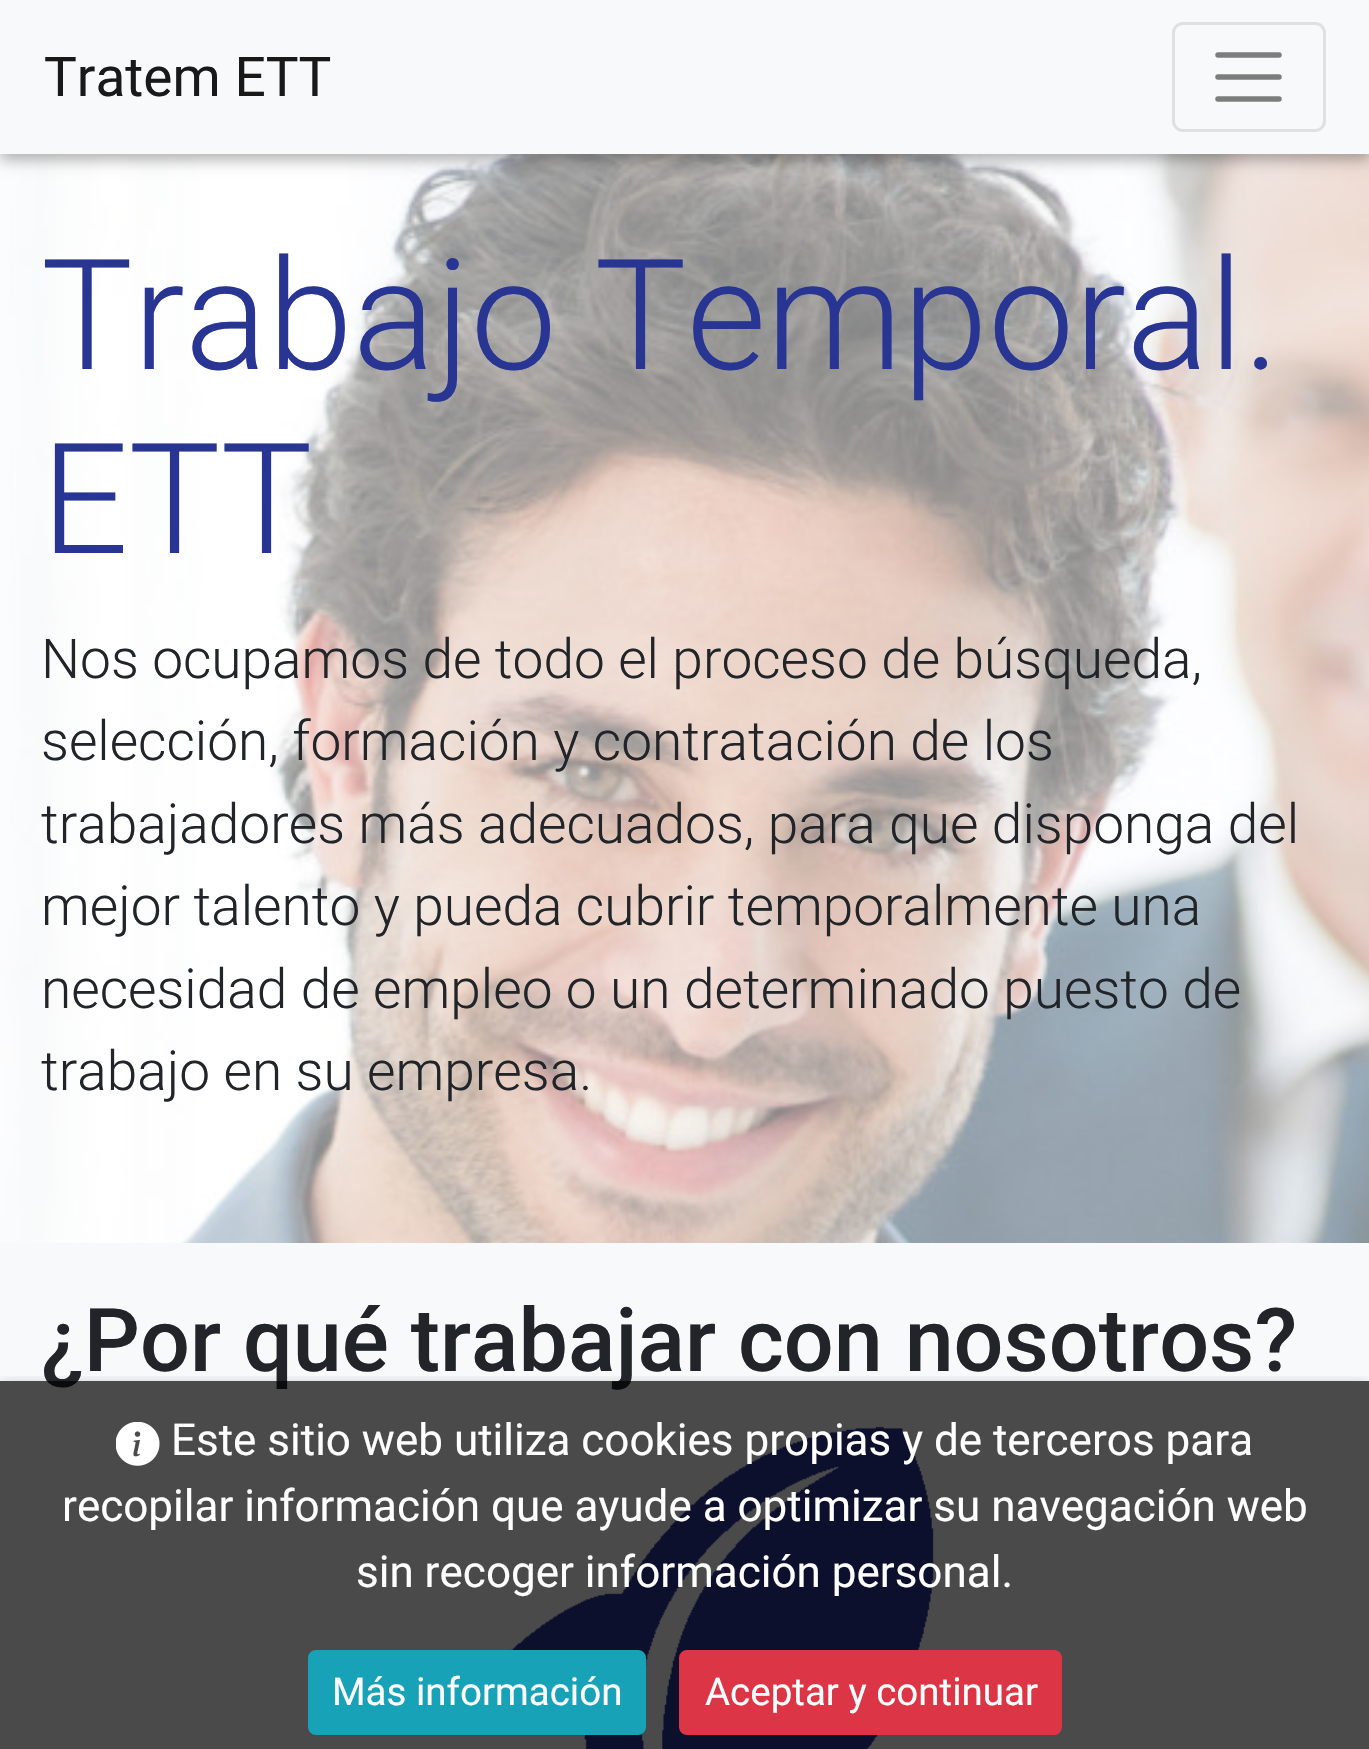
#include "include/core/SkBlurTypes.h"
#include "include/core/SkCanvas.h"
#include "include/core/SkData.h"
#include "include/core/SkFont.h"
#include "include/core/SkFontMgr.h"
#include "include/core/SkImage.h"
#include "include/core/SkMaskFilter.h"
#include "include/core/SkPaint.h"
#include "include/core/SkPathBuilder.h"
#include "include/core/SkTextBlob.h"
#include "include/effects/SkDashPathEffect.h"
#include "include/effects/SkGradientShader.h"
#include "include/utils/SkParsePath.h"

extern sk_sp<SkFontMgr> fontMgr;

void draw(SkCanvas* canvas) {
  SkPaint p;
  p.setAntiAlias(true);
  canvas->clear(SkColorSetRGB(248, 249, 250));
  canvas->drawImageRect(SkImages::DeferredFromEncodedData(SkData::MakeFromFileName("images/1.png")), SkRect::MakeLTRB(0, 154, 1369, 1243), SkSamplingOptions());
  p.setColor(SkColorSetARGB(77, 0, 0, 0));
  p.setMaskFilter(SkMaskFilter::MakeBlur(kNormal_SkBlurStyle, 7));
  canvas->drawRect(SkRect::MakeLTRB(0, 6, 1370, 160), p);
  p.setMaskFilter(nullptr);
  p.setColor(SkColorSetRGB(248, 249, 250));
  canvas->drawRect(SkRect::MakeLTRB(0, 0, 1369, 154), p);
  p.setStyle(SkPaint::kStroke_Style);
  p.setStrokeWidth(3);
  p.setColor(SkColorSetRGB(223, 224, 225));
  canvas->drawRoundRect(SkRect::MakeLTRB(1173.5f, 23.5f, 1324.5f, 130.5f), 9.5f, 9.5f, p);
  p.setStrokeWidth(5.5f);
  p.setStrokeCap(SkPaint::kRound_Cap);
  p.setColor(SkColorSetRGB(124, 125, 125));
  canvas->drawPath(SkPathBuilder().moveTo(1218, 55).lineTo(1279, 55).moveTo(1218, 77).lineTo(1279, 77).moveTo(1218, 99).lineTo(1279, 99).detach(), p);
  canvas->drawImageRect(SkImages::DeferredFromEncodedData(SkData::MakeFromFileName("images/2.png")), SkRect::MakeLTRB(510, 1426, 934, 1749), SkSamplingOptions());
  canvas->save();
  canvas->clipRect(SkRect::MakeLTRB(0, 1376, 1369, 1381));
  p.setStyle(SkPaint::kFill_Style);
  p.setColor(SkColorSetARGB(77, 0, 0, 0));
  p.setMaskFilter(SkMaskFilter::MakeBlur(kNormal_SkBlurStyle, 7));
  canvas->drawRect(SkRect::MakeLTRB(0, 1386, 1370, 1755), p);
  p.setMaskFilter(nullptr);
  canvas->restore();
  SkFont font1(fontMgr->matchFamilyStyle("Roboto", SkFontStyle::Normal()), 55);
  font1.setSubpixel(true);
  p.setColor(SkColorSetRGB(25, 25, 25));
  canvas->drawString("Tratem ETT", 44, 96, font1, p);
  SkFont font2(fontMgr->matchFamilyStyle("Roboto", SkFontStyle(300, SkFontStyle::kNormal_Width, SkFontStyle::kUpright_Slant)), 154);
  font2.setSubpixel(true);
  p.setColor(SkColorSetRGB(40, 53, 147));
  canvas->drawString("Trabajo Temporal.", 41, 369, font2, p);
  canvas->drawString("ETT", 41, 553, font2, p);
  SkFont font3(fontMgr->matchFamilyStyle("Roboto", SkFontStyle(300, SkFontStyle::kNormal_Width, SkFontStyle::kUpright_Slant)), 55);
  font3.setSubpixel(true);
  p.setColor(SkColorSetRGB(33, 37, 41));
  canvas->drawString("Nos ocupamos de todo el proceso de búsqueda,", 41, 678, font3, p);
  canvas->drawString("selección, formación y contratación de los", 41, 760, font3, p);
  canvas->drawString("trabajadores más adecuados, para que disponga del", 41, 843, font3, p);
  canvas->drawString("mejor talento y pueda cubrir temporalmente una", 41, 925, font3, p);
  canvas->drawString("necesidad de empleo o un determinado puesto de", 41, 1008, font3, p);
  canvas->drawString("trabajo en su empresa.", 41, 1090, font3, p);
  SkFont font4(fontMgr->matchFamilyStyle("Roboto", SkFontStyle(500, SkFontStyle::kNormal_Width, SkFontStyle::kUpright_Slant)), 88);
  font4.setSubpixel(true);
  canvas->drawString("¿Por qué trabajar con nosotros?", 41, 1371, font4, p);
  p.setColor(SkColorSetARGB(179, 0, 0, 0));
  canvas->drawRect(SkRect::MakeLTRB(0, 1381, 1369, 1749), p);
  canvas->drawImageRect(SkImages::DeferredFromEncodedData(SkData::MakeFromFileName("images/3.png")), SkRect::MakeLTRB(116, 1422, 160, 1466), SkSamplingOptions());
  SkFont font5(fontMgr->matchFamilyStyle("Roboto", SkFontStyle::Normal()), 44);
  font5.setSubpixel(true);
  p.setColor(SK_ColorWHITE);
  canvas->drawString("Este sitio web utiliza cookies propias y de terceros para", 171, 1455, font5, p);
  canvas->drawString("recopilar información que ayude a optimizar su navegación web", 62, 1521, font5, p);
  canvas->drawString("sin recoger información personal.", 356, 1587, font5, p);
  p.setColor(SkColorSetRGB(23, 162, 184));
  canvas->drawRoundRect(SkRect::MakeLTRB(309.5f, 1651.5f, 644.5f, 1733.5f), 6.5f, 6.5f, p);
  p.setStyle(SkPaint::kStroke_Style);
  p.setStrokeWidth(3);
  p.setStrokeCap(SkPaint::kButt_Cap);
  canvas->drawRoundRect(SkRect::MakeLTRB(309.5f, 1651.5f, 644.5f, 1733.5f), 6.5f, 6.5f, p);
  SkFont font6(fontMgr->matchFamilyStyle("Roboto", SkFontStyle::Normal()), 38.5f);
  font6.setSubpixel(true);
  p.setStyle(SkPaint::kFill_Style);
  p.setColor(SK_ColorWHITE);
  canvas->drawString("Más información", 332, 1705, font6, p);
  p.setColor(SkColorSetRGB(220, 53, 69));
  canvas->drawRoundRect(SkRect::MakeLTRB(680.5f, 1651.5f, 1060.5f, 1733.5f), 6.5f, 6.5f, p);
  p.setStyle(SkPaint::kStroke_Style);
  canvas->drawRoundRect(SkRect::MakeLTRB(680.5f, 1651.5f, 1060.5f, 1733.5f), 6.5f, 6.5f, p);
  p.setStyle(SkPaint::kFill_Style);
  p.setColor(SK_ColorWHITE);
  canvas->drawString("Aceptar y continuar", 705, 1705, font6, p);
}
